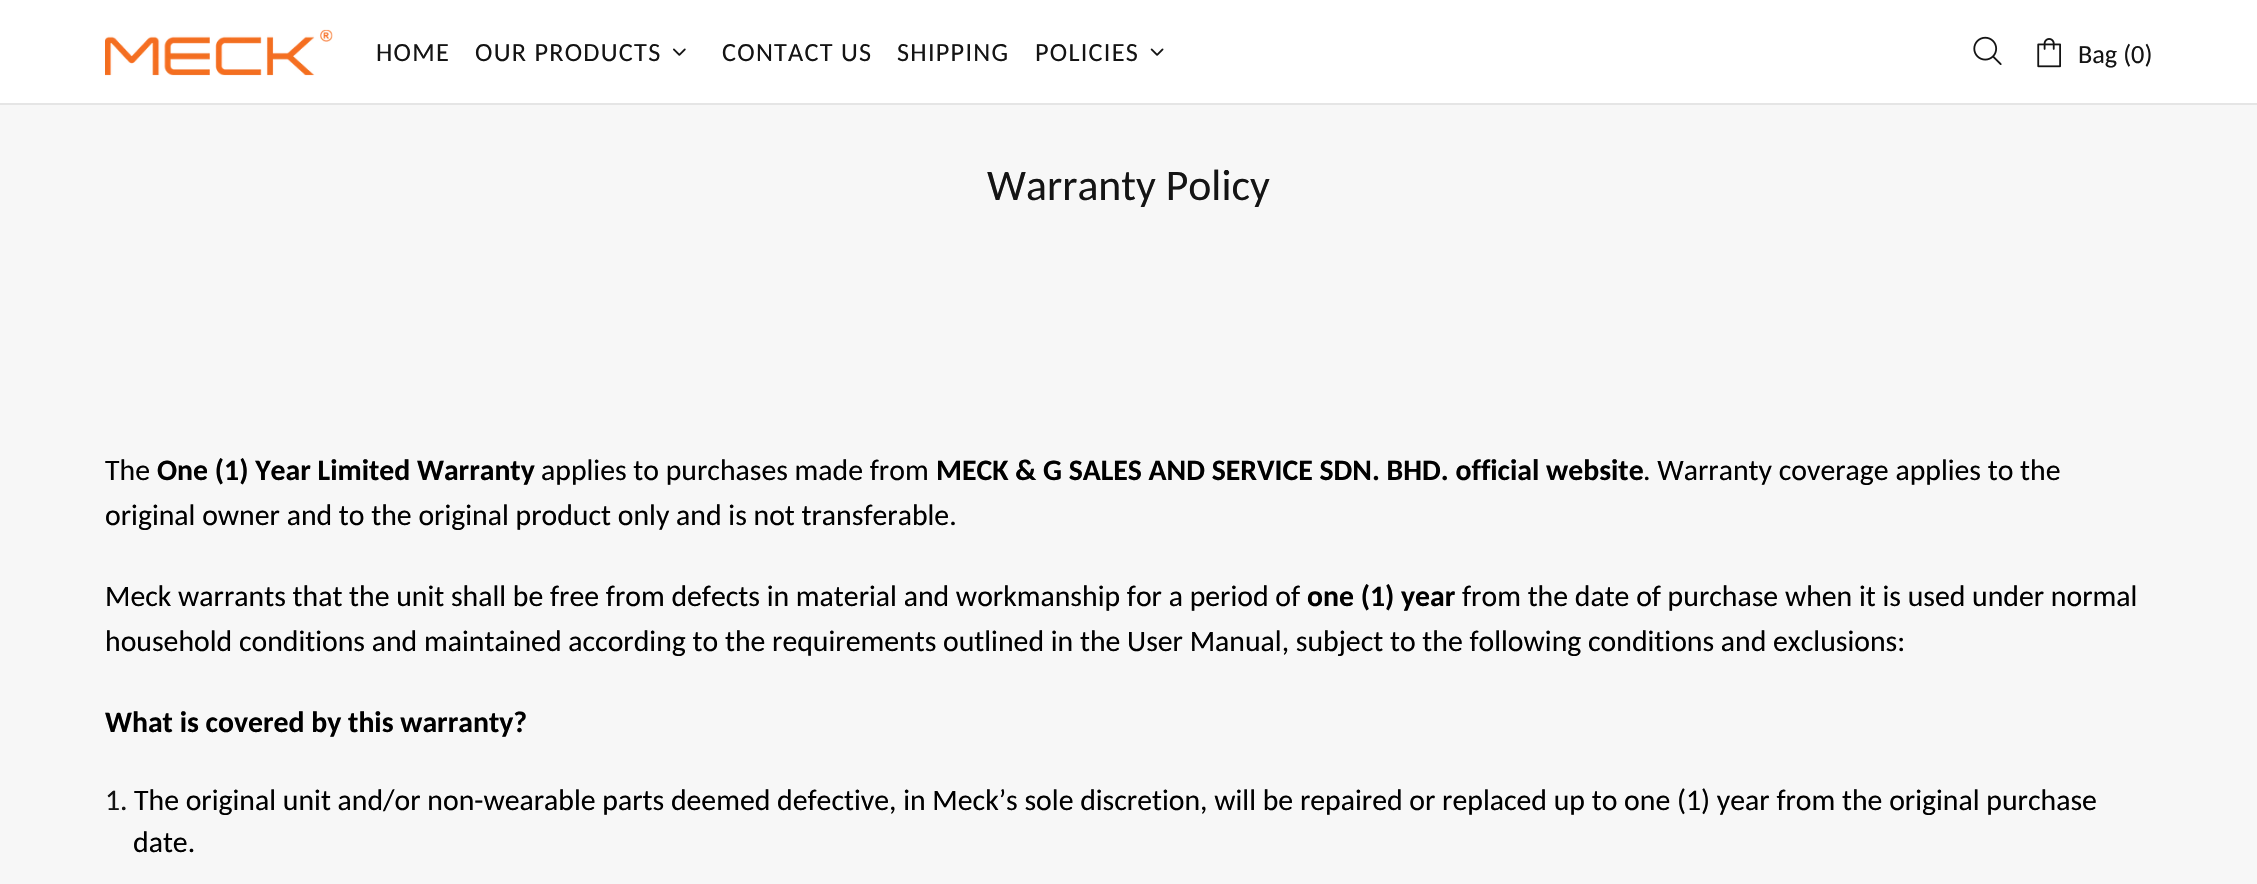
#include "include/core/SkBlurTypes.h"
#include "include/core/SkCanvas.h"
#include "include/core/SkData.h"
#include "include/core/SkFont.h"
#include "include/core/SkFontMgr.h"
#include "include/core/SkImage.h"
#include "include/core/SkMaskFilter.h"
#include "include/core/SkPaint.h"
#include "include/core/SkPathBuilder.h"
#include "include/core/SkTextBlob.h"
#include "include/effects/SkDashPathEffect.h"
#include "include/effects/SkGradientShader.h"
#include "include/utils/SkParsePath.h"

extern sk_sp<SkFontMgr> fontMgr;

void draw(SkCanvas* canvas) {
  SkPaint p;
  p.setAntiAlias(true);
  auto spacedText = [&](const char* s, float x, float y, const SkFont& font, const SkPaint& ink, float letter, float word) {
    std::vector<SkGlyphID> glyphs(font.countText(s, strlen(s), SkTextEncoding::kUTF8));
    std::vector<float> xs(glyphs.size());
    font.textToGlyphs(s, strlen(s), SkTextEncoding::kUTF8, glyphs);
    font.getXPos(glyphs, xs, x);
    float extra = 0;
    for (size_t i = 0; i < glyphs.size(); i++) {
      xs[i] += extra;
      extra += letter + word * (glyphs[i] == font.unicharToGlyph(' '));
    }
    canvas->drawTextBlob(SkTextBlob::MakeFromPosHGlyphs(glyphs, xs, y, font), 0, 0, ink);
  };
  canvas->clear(SkColorSetRGB(247, 247, 247));
  p.setColor(SK_ColorWHITE);
  canvas->drawRect(SkRect::MakeLTRB(0, 0, 2257, 103), p);
  p.setColor(SkColorSetRGB(229, 229, 229));
  canvas->drawRect(SkRect::MakeLTRB(0, 103, 2257, 105), p);
  canvas->drawImageRect(SkImages::DeferredFromEncodedData(SkData::MakeFromFileName("images/1.png")), SkRect::MakeLTRB(105, 29, 333, 76), SkSamplingOptions());
  canvas->drawImageRect(SkImages::DeferredFromEncodedData(SkData::MakeFromFileName("images/2.png")), SkRect::MakeLTRB(673, 48, 686, 56), SkSamplingOptions());
  canvas->drawImageRect(SkImages::DeferredFromEncodedData(SkData::MakeFromFileName("images/3.png")), SkRect::MakeLTRB(1150, 48, 1164, 56), SkSamplingOptions());
  canvas->drawImageRect(SkImages::DeferredFromEncodedData(SkData::MakeFromFileName("images/4.png")), SkRect::MakeLTRB(1973, 36, 2002, 65), SkSamplingOptions());
  canvas->drawImageRect(SkImages::DeferredFromEncodedData(SkData::MakeFromFileName("images/5.png")), SkRect::MakeLTRB(2037, 38, 2061, 68), SkSamplingOptions());
  SkFont font1(fontMgr->matchFamilyStyle("Carlito", SkFontStyle::Normal()), 26.25f);
  font1.setSubpixel(true);
  p.setColor(SkColorSetRGB(20, 20, 20));
  spacedText("HOME", 376, 61, font1, p, 1.25f, 0);
  spacedText("OUR PRODUCTS", 475, 61, font1, p, 1.25f, 0);
  spacedText("CONTACT US", 722, 61, font1, p, 1.25f, 0);
  spacedText("SHIPPING", 897, 61, font1, p, 1.25f, 0);
  spacedText("POLICIES", 1035, 61, font1, p, 1.25f, 0);
  canvas->drawString("Bag (0)", 2078, 63, font1, p);
  SkFont font2(fontMgr->matchFamilyStyle("Carlito", SkFontStyle::Normal()), 43.75f);
  font2.setSubpixel(true);
  canvas->drawString("Warranty Policy", 987, 200, font2, p);
  SkFont font3(fontMgr->matchFamilyStyle("Carlito", SkFontStyle::Normal()), 29.75f);
  font3.setSubpixel(true);
  p.setColor(SK_ColorBLACK);
  canvas->drawString("The", 105, 480, font3, p);
  SkFont font4(fontMgr->matchFamilyStyle("Carlito", SkFontStyle::Bold()), 29.75f);
  font4.setSubpixel(true);
  canvas->drawString("One (1) Year Limited Warranty", 157, 480, font4, p);
  canvas->drawString("applies to purchases made from", 541, 480, font3, p);
  canvas->drawString("MECK & G SALES AND SERVICE SDN. BHD. official website", 936, 480, font4, p);
  canvas->drawString(". Warranty coverage applies to the", 1643, 480, font3, p);
  canvas->drawString("original owner and to the original product only and is not transferable.", 105, 525, font3, p);
  canvas->drawString("Meck warrants that the unit shall be free from defects in material and workmanship for a period of", 105, 606, font3, p);
  canvas->drawString("one (1) year", 1307, 606, font4, p);
  canvas->drawString("from the date of purchase when it is used under normal", 1462, 606, font3, p);
  canvas->drawString("household conditions and maintained according to the requirements outlined in the User Manual, subject to the following conditions and exclusions:", 105, 651, font3, p);
  canvas->drawString("What is covered by this warranty?", 105, 732, font4, p);
  p.setColor(SkColorSetRGB(20, 20, 20));
  canvas->drawString("1.", 105, 810, font3, p);
  p.setColor(SK_ColorBLACK);
  canvas->drawString("The original unit and/or non-wearable parts deemed defective, in Meck’s sole discretion, will be repaired or replaced up to one (1) year from the original purchase", 134, 810, font3, p);
  canvas->drawString("date.", 133, 852, font3, p);
}
